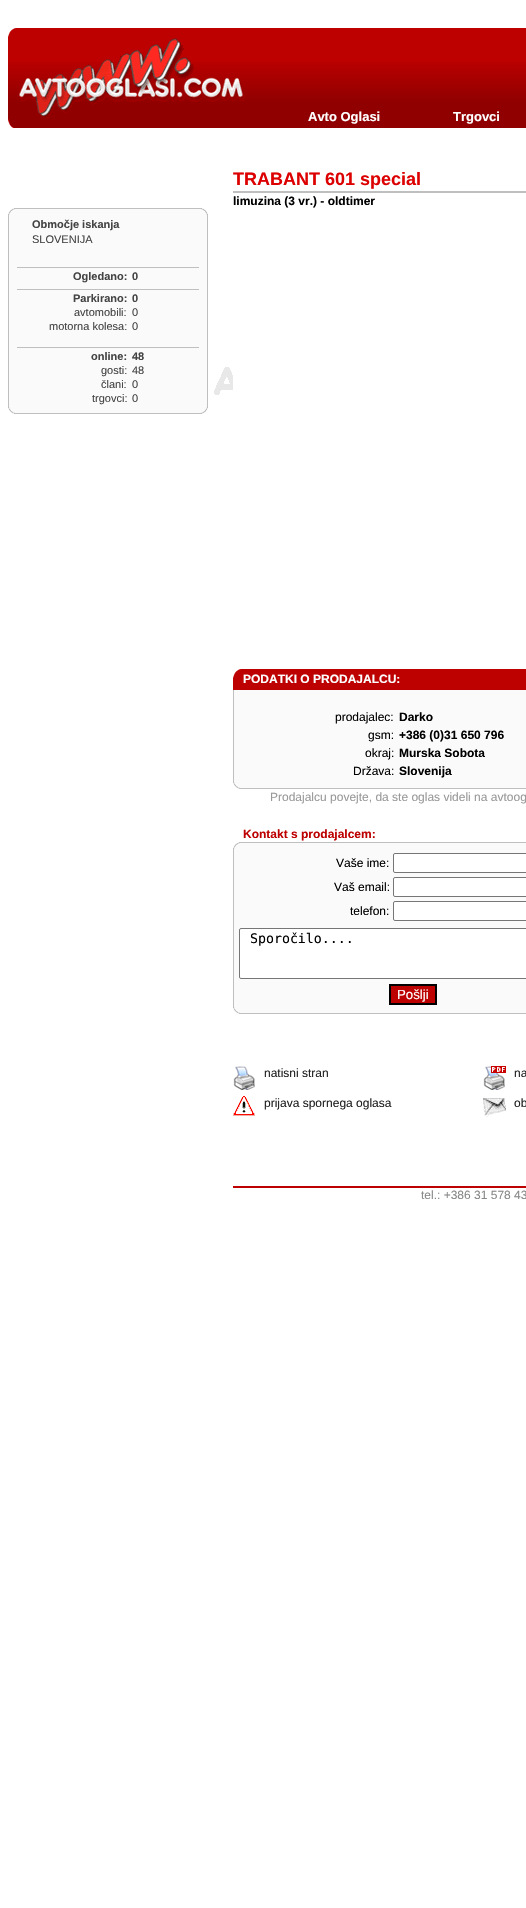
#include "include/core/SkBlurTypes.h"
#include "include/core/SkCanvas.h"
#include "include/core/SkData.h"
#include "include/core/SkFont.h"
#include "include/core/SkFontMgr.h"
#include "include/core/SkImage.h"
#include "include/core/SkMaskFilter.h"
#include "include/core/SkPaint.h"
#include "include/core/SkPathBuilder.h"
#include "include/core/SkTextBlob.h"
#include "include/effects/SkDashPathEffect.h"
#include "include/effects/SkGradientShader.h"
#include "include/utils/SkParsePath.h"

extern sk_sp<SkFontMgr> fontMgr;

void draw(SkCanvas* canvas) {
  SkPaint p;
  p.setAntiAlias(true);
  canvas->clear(SK_ColorWHITE);
  canvas->drawImageRect(SkImages::DeferredFromEncodedData(SkData::MakeFromFileName("images/1.png")), SkRect::MakeLTRB(214, 367, 233, 395), SkSamplingOptions());
  p.setColor(SkColorSetRGB(189, 0, 0));
  canvas->drawRect(SkRect::MakeLTRB(9, 28, 526, 37), p);
  canvas->drawImageRect(SkImages::DeferredFromEncodedData(SkData::MakeFromFileName("images/2.png")), SkRect::MakeLTRB(8, 28, 16, 37), SkSamplingOptions());
  canvas->drawRect(SkRect::MakeLTRB(8, 37, 526, 62), p);
  canvas->drawImageRect(SkImages::DeferredFromEncodedData(SkData::MakeFromFileName("images/3.png")), SkRect::MakeLTRB(8, 62, 526, 105), SkSamplingOptions());
  p.setColor(SkColorSetRGB(144, 0, 0));
  canvas->drawRect(SkRect::MakeLTRB(8, 105, 526, 128), p);
  canvas->drawImageRect(SkImages::DeferredFromEncodedData(SkData::MakeFromFileName("images/4.png")), SkRect::MakeLTRB(19, 38, 245, 118), SkSamplingOptions());
  canvas->drawImageRect(SkImages::DeferredFromEncodedData(SkData::MakeFromFileName("images/5.png")), SkRect::MakeLTRB(8, 119, 14, 128), SkSamplingOptions());
  p.setColor(SkColorSetRGB(250, 250, 250));
  canvas->drawRect(SkRect::MakeLTRB(8, 208, 208, 217), p);
  canvas->drawImageRect(SkImages::DeferredFromEncodedData(SkData::MakeFromFileName("images/6.png")), SkRect::MakeLTRB(8, 208, 199, 217), SkSamplingOptions());
  canvas->drawImageRect(SkImages::DeferredFromEncodedData(SkData::MakeFromFileName("images/7.png")), SkRect::MakeLTRB(199, 208, 208, 217), SkSamplingOptions());
  canvas->drawRect(SkRect::MakeLTRB(9, 217, 207, 405), p);
  p.setColor(SkColorSetRGB(191, 191, 191));
  canvas->drawRect(SkRect::MakeLTRB(207, 217, 208, 405), p);
  canvas->drawRect(SkRect::MakeLTRB(8, 217, 9, 405), p);
  canvas->drawRect(SkRect::MakeLTRB(17, 267, 199, 268), p);
  canvas->drawRect(SkRect::MakeLTRB(17, 289, 199, 290), p);
  canvas->drawRect(SkRect::MakeLTRB(17, 347, 199, 348), p);
  p.setColor(SkColorSetRGB(250, 250, 250));
  canvas->drawRect(SkRect::MakeLTRB(8, 405, 208, 414), p);
  canvas->drawImageRect(SkImages::DeferredFromEncodedData(SkData::MakeFromFileName("images/8.png")), SkRect::MakeLTRB(8, 405, 199, 414), SkSamplingOptions());
  canvas->drawImageRect(SkImages::DeferredFromEncodedData(SkData::MakeFromFileName("images/9.png")), SkRect::MakeLTRB(199, 405, 208, 414), SkSamplingOptions());
  p.setColor(SkColorSetRGB(191, 191, 191));
  canvas->drawRect(SkRect::MakeLTRB(233, 191, 526, 193), p);
  p.setColor(SkColorSetRGB(189, 0, 0));
  canvas->drawRect(SkRect::MakeLTRB(233, 669, 526, 690), p);
  canvas->drawImageRect(SkImages::DeferredFromEncodedData(SkData::MakeFromFileName("images/2.png")), SkRect::MakeLTRB(233, 669, 241, 678), SkSamplingOptions());
  p.setColor(SkColorSetRGB(250, 250, 250));
  canvas->drawRect(SkRect::MakeLTRB(234, 690, 526, 780), p);
  p.setColor(SkColorSetRGB(191, 191, 191));
  canvas->drawRect(SkRect::MakeLTRB(233, 690, 234, 780), p);
  p.setColor(SkColorSetRGB(250, 250, 250));
  canvas->drawRect(SkRect::MakeLTRB(233, 780, 526, 789), p);
  canvas->drawImageRect(SkImages::DeferredFromEncodedData(SkData::MakeFromFileName("images/10.png")), SkRect::MakeLTRB(233, 780, 526, 789), SkSamplingOptions());
  canvas->drawRect(SkRect::MakeLTRB(233, 842, 526, 851), p);
  canvas->drawImageRect(SkImages::DeferredFromEncodedData(SkData::MakeFromFileName("images/11.png")), SkRect::MakeLTRB(233, 842, 526, 851), SkSamplingOptions());
  canvas->drawRect(SkRect::MakeLTRB(234, 851, 526, 1005), p);
  p.setColor(SkColorSetRGB(191, 191, 191));
  canvas->drawRect(SkRect::MakeLTRB(233, 851, 234, 1005), p);
  p.setColor(SK_ColorWHITE);
  canvas->drawRoundRect(SkRect::MakeLTRB(393.5f, 853.5f, 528.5f, 872.5f), 1.5f, 1.5f, p);
  p.setStyle(SkPaint::kStroke_Style);
  p.setStrokeWidth(1);
  p.setColor(SkColorSetRGB(118, 118, 118));
  canvas->drawRoundRect(SkRect::MakeLTRB(393.5f, 853.5f, 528.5f, 872.5f), 1.5f, 1.5f, p);
  p.setStyle(SkPaint::kFill_Style);
  p.setColor(SK_ColorWHITE);
  canvas->drawRoundRect(SkRect::MakeLTRB(393.5f, 877.5f, 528.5f, 896.5f), 1.5f, 1.5f, p);
  p.setStyle(SkPaint::kStroke_Style);
  p.setColor(SkColorSetRGB(118, 118, 118));
  canvas->drawRoundRect(SkRect::MakeLTRB(393.5f, 877.5f, 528.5f, 896.5f), 1.5f, 1.5f, p);
  p.setStyle(SkPaint::kFill_Style);
  p.setColor(SK_ColorWHITE);
  canvas->drawRoundRect(SkRect::MakeLTRB(393.5f, 901.5f, 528.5f, 920.5f), 1.5f, 1.5f, p);
  p.setStyle(SkPaint::kStroke_Style);
  p.setColor(SkColorSetRGB(118, 118, 118));
  canvas->drawRoundRect(SkRect::MakeLTRB(393.5f, 901.5f, 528.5f, 920.5f), 1.5f, 1.5f, p);
  p.setStyle(SkPaint::kFill_Style);
  p.setColor(SK_ColorWHITE);
  canvas->drawRoundRect(SkRect::MakeLTRB(239.5f, 928.5f, 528.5f, 978.5f), 1.5f, 1.5f, p);
  p.setStyle(SkPaint::kStroke_Style);
  p.setColor(SkColorSetRGB(118, 118, 118));
  canvas->drawRoundRect(SkRect::MakeLTRB(239.5f, 928.5f, 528.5f, 978.5f), 1.5f, 1.5f, p);
  p.setStyle(SkPaint::kFill_Style);
  p.setColor(SkColorSetRGB(189, 0, 0));
  canvas->drawRect(SkRect::MakeLTRB(390, 985, 436, 1004), p);
  p.setStyle(SkPaint::kStroke_Style);
  p.setStrokeWidth(2);
  p.setColor(SK_ColorBLACK);
  canvas->drawRect(SkRect::MakeLTRB(390, 985, 436, 1004), p);
  p.setStyle(SkPaint::kFill_Style);
  p.setColor(SkColorSetRGB(250, 250, 250));
  canvas->drawRect(SkRect::MakeLTRB(233, 1005, 526, 1014), p);
  canvas->drawImageRect(SkImages::DeferredFromEncodedData(SkData::MakeFromFileName("images/10.png")), SkRect::MakeLTRB(233, 1005, 526, 1014), SkSamplingOptions());
  canvas->drawImageRect(SkImages::DeferredFromEncodedData(SkData::MakeFromFileName("images/12.png")), SkRect::MakeLTRB(233, 1066, 255, 1090), SkSamplingOptions());
  canvas->drawImageRect(SkImages::DeferredFromEncodedData(SkData::MakeFromFileName("images/13.png")), SkRect::MakeLTRB(483, 1066, 506, 1090), SkSamplingOptions());
  canvas->drawImageRect(SkImages::DeferredFromEncodedData(SkData::MakeFromFileName("images/14.png")), SkRect::MakeLTRB(233, 1096, 255, 1116), SkSamplingOptions());
  canvas->drawImageRect(SkImages::DeferredFromEncodedData(SkData::MakeFromFileName("images/15.png")), SkRect::MakeLTRB(483, 1098, 506, 1117), SkSamplingOptions());
  p.setColor(SkColorSetRGB(189, 0, 0));
  canvas->drawRect(SkRect::MakeLTRB(233, 1186, 526, 1188), p);
  SkFont font1(fontMgr->matchFamilyStyle("Liberation Sans", SkFontStyle::Bold()), 13);
  font1.setSubpixel(true);
  p.setColor(SK_ColorWHITE);
  canvas->drawString("Avto Oglasi", 308, 121, font1, p);
  canvas->drawString("Trgovci", 453, 121, font1, p);
  SkFont font2(fontMgr->matchFamilyStyle("Liberation Sans", SkFontStyle::Bold()), 11);
  font2.setSubpixel(true);
  p.setColor(SkColorSetRGB(68, 68, 68));
  canvas->drawString("Območje iskanja", 32, 228, font2, p);
  SkFont font3(fontMgr->matchFamilyStyle("Liberation Sans", SkFontStyle::Normal()), 11);
  font3.setSubpixel(true);
  canvas->drawString("SLOVENIJA", 32, 243, font3, p);
  canvas->drawString("Ogledano:", 73, 280, font2, p);
  canvas->drawString("0", 132, 280, font2, p);
  canvas->drawString("Parkirano:", 73, 302, font2, p);
  canvas->drawString("0", 132, 302, font2, p);
  canvas->drawString("avtomobili:", 74, 316, font3, p);
  canvas->drawString("0", 132, 316, font3, p);
  canvas->drawString("motorna kolesa:", 49, 330, font3, p);
  canvas->drawString("0", 132, 330, font3, p);
  canvas->drawString("online:", 91, 360, font2, p);
  canvas->drawString("48", 132, 360, font2, p);
  canvas->drawString("gosti:", 101, 374, font3, p);
  canvas->drawString("48", 132, 374, font3, p);
  canvas->drawString("člani:", 101, 388, font3, p);
  canvas->drawString("0", 132, 388, font3, p);
  canvas->drawString("trgovci:", 92, 402, font3, p);
  canvas->drawString("0", 132, 402, font3, p);
  SkFont font4(fontMgr->matchFamilyStyle("Liberation Sans", SkFontStyle::Bold()), 18);
  font4.setSubpixel(true);
  p.setColor(SkColorSetRGB(221, 0, 0));
  canvas->drawString("TRABANT 601 special", 233, 185, font4, p);
  SkFont font5(fontMgr->matchFamilyStyle("Liberation Sans", SkFontStyle::Bold()), 12);
  font5.setSubpixel(true);
  p.setColor(SK_ColorBLACK);
  canvas->drawString("limuzina (3 vr.) - oldtimer", 233, 205, font5, p);
  p.setColor(SK_ColorWHITE);
  canvas->drawString("PODATKI O PRODAJALCU:", 243, 683, font5, p);
  SkFont font6(fontMgr->matchFamilyStyle("Liberation Sans", SkFontStyle::Normal()), 12);
  font6.setSubpixel(true);
  p.setColor(SK_ColorBLACK);
  canvas->drawString("prodajalec:", 335, 721, font6, p);
  canvas->drawString("gsm:", 368, 739, font6, p);
  canvas->drawString("okraj:", 365, 757, font6, p);
  canvas->drawString("Država:", 353, 775, font6, p);
  canvas->drawString("Darko", 399, 721, font5, p);
  canvas->drawString("+386 (0)31 650 796", 399, 739, font5, p);
  canvas->drawString("Murska Sobota", 399, 757, font5, p);
  canvas->drawString("Slovenija", 399, 775, font5, p);
  p.setColor(SkColorSetRGB(153, 153, 153));
  canvas->drawString("Prodajalcu povejte, da ste oglas videli na avtoog", 270, 801, font6, p);
  p.setColor(SkColorSetRGB(189, 0, 0));
  canvas->drawString("Kontakt s prodajalcem:", 243, 838, font5, p);
  p.setColor(SK_ColorBLACK);
  canvas->drawString("Vaše ime:", 336, 867, font6, p);
  canvas->drawString("Vaš email:", 334, 891, font6, p);
  canvas->drawString("telefon:", 350, 915, font6, p);
  SkFont font7(fontMgr->matchFamilyStyle("DejaVu Sans Mono", SkFontStyle::Normal()), 13.25f);
  font7.setSubpixel(true);
  canvas->drawString("Sporočilo....", 250, 943, font7, p);
  SkFont font8(fontMgr->matchFamilyStyle("Liberation Sans", SkFontStyle::Normal()), 13.25f);
  font8.setSubpixel(true);
  p.setColor(SK_ColorWHITE);
  canvas->drawString("Pošlji", 397, 999, font8, p);
  p.setColor(SkColorSetRGB(34, 34, 34));
  canvas->drawString("natisni stran", 264, 1077, font6, p);
  canvas->drawString("na", 514, 1077, font6, p);
  canvas->drawString("prijava spornega oglasa", 264, 1107, font6, p);
  canvas->drawString("ob", 514, 1107, font6, p);
  p.setColor(SkColorSetRGB(136, 136, 136));
  canvas->drawString("tel.: +386 31 578 43", 421, 1199, font6, p);
}
